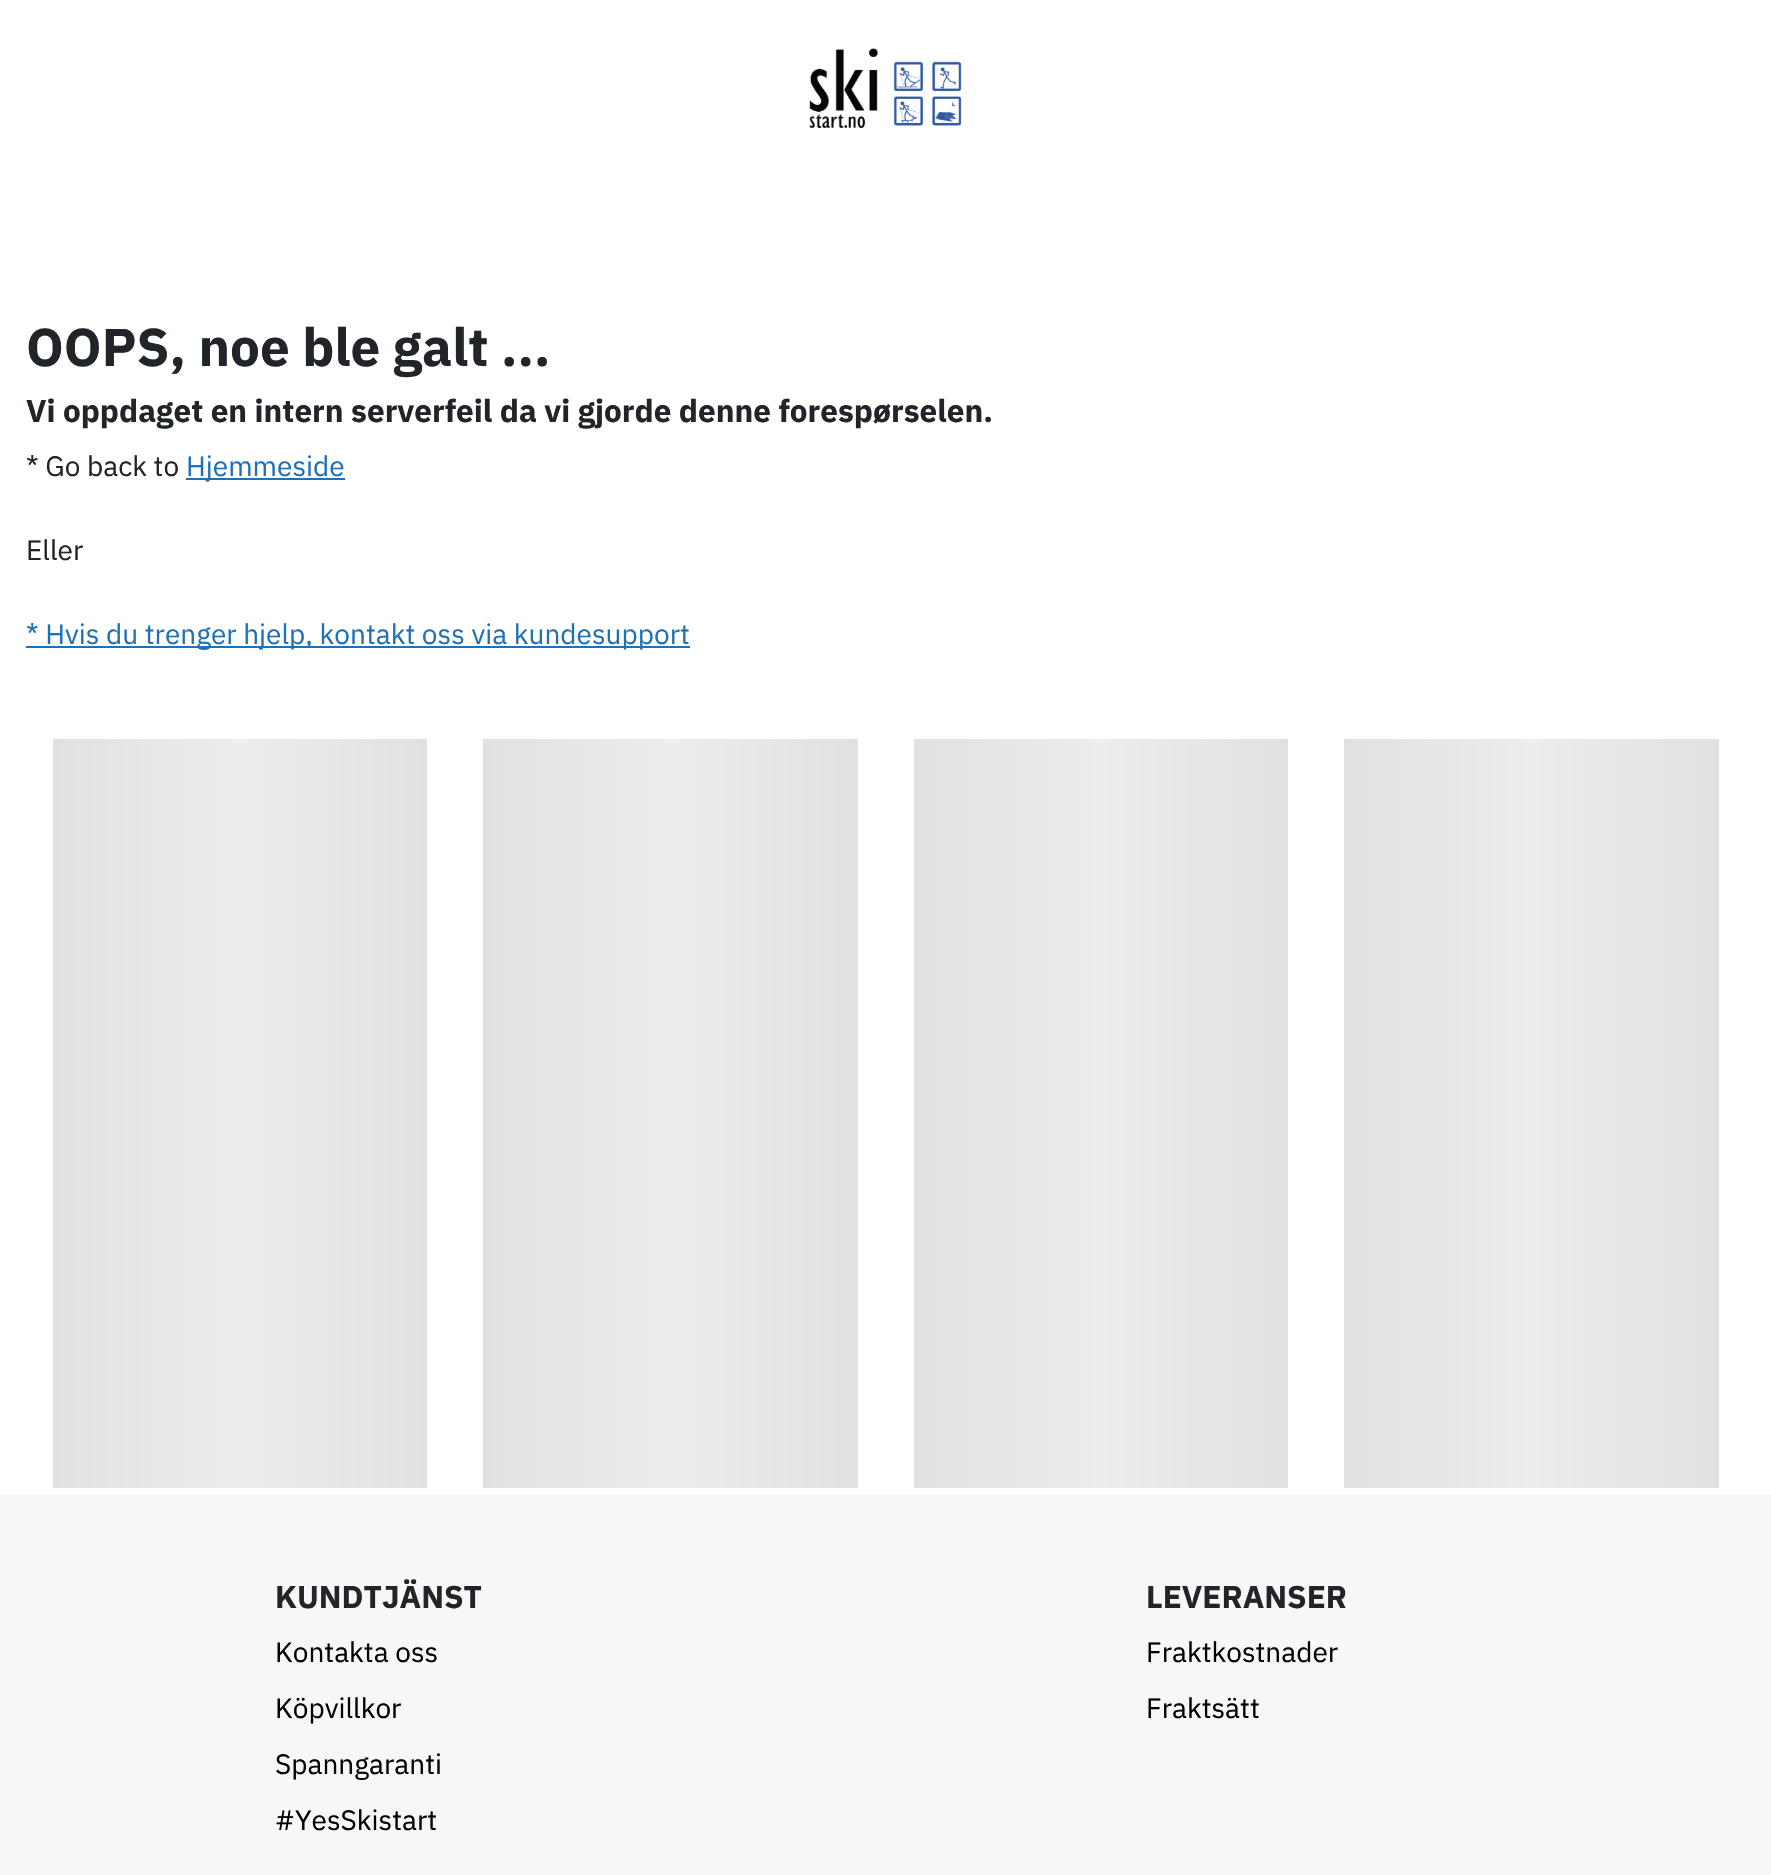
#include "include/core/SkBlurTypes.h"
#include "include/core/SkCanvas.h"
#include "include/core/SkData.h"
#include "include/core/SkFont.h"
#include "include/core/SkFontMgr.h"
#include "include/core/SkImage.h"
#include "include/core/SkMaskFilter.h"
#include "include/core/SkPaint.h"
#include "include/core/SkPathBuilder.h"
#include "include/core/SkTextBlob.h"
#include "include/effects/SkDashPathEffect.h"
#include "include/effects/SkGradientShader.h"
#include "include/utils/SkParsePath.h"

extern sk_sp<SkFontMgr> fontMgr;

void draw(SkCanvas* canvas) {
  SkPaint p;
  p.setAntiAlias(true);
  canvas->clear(SK_ColorWHITE);
  canvas->drawImageRect(SkImages::DeferredFromEncodedData(SkData::MakeFromFileName("images/1.png")), SkRect::MakeLTRB(809, 48, 962, 128), SkSamplingOptions());
  p.setColor(SkColorSetRGB(29, 113, 184));
  canvas->drawRect(SkRect::MakeLTRB(186, 478, 345, 480), p);
  canvas->drawRect(SkRect::MakeLTRB(26, 646, 690, 648), p);
  {
    const SkColor colors[] = {SkColorSetRGB(225, 225, 225), SkColorSetRGB(237, 237, 237), SkColorSetRGB(225, 225, 225)};
    const float stops[] = {0, 0.5f, 1};
    const SkPoint ends[] = {{53, 926}, {427, 926}};
    p.setShader(SkGradientShader::MakeLinear(ends, colors, stops, 3, SkTileMode::kClamp));
    p.setAlpha(255);
  }
  canvas->drawRect(SkRect::MakeLTRB(53, 739, 427, 1113), p);
  {
    const SkColor colors[] = {SkColorSetRGB(225, 225, 225), SkColorSetRGB(237, 237, 237), SkColorSetRGB(225, 225, 225)};
    const float stops[] = {0, 0.5f, 1};
    const SkPoint ends[] = {{483, 926}, {858, 926}};
    p.setShader(SkGradientShader::MakeLinear(ends, colors, stops, 3, SkTileMode::kClamp));
    p.setAlpha(255);
  }
  canvas->drawRect(SkRect::MakeLTRB(483, 739, 858, 1113), p);
  {
    const SkColor colors[] = {SkColorSetRGB(225, 225, 225), SkColorSetRGB(237, 237, 237), SkColorSetRGB(225, 225, 225)};
    const float stops[] = {0, 0.5f, 1};
    const SkPoint ends[] = {{914, 926}, {1288, 926}};
    p.setShader(SkGradientShader::MakeLinear(ends, colors, stops, 3, SkTileMode::kClamp));
    p.setAlpha(255);
  }
  canvas->drawRect(SkRect::MakeLTRB(914, 739, 1288, 1113), p);
  {
    const SkColor colors[] = {SkColorSetRGB(225, 225, 225), SkColorSetRGB(237, 237, 237), SkColorSetRGB(225, 225, 225)};
    const float stops[] = {0, 0.5f, 1};
    const SkPoint ends[] = {{1344, 926}, {1719, 926}};
    p.setShader(SkGradientShader::MakeLinear(ends, colors, stops, 3, SkTileMode::kClamp));
    p.setAlpha(255);
  }
  canvas->drawRect(SkRect::MakeLTRB(1344, 739, 1719, 1113), p);
  {
    const SkColor colors[] = {SkColorSetRGB(225, 225, 225), SkColorSetRGB(237, 237, 237), SkColorSetRGB(225, 225, 225)};
    const float stops[] = {0, 0.5f, 1};
    const SkPoint ends[] = {{53, 1300}, {427, 1300}};
    p.setShader(SkGradientShader::MakeLinear(ends, colors, stops, 3, SkTileMode::kClamp));
    p.setAlpha(255);
  }
  canvas->drawRect(SkRect::MakeLTRB(53, 1113, 427, 1488), p);
  {
    const SkColor colors[] = {SkColorSetRGB(225, 225, 225), SkColorSetRGB(237, 237, 237), SkColorSetRGB(225, 225, 225)};
    const float stops[] = {0, 0.5f, 1};
    const SkPoint ends[] = {{483, 1300}, {858, 1300}};
    p.setShader(SkGradientShader::MakeLinear(ends, colors, stops, 3, SkTileMode::kClamp));
    p.setAlpha(255);
  }
  canvas->drawRect(SkRect::MakeLTRB(483, 1113, 858, 1488), p);
  {
    const SkColor colors[] = {SkColorSetRGB(225, 225, 225), SkColorSetRGB(237, 237, 237), SkColorSetRGB(225, 225, 225)};
    const float stops[] = {0, 0.5f, 1};
    const SkPoint ends[] = {{914, 1300}, {1288, 1300}};
    p.setShader(SkGradientShader::MakeLinear(ends, colors, stops, 3, SkTileMode::kClamp));
    p.setAlpha(255);
  }
  canvas->drawRect(SkRect::MakeLTRB(914, 1113, 1288, 1488), p);
  {
    const SkColor colors[] = {SkColorSetRGB(225, 225, 225), SkColorSetRGB(237, 237, 237), SkColorSetRGB(225, 225, 225)};
    const float stops[] = {0, 0.5f, 1};
    const SkPoint ends[] = {{1344, 1300}, {1719, 1300}};
    p.setShader(SkGradientShader::MakeLinear(ends, colors, stops, 3, SkTileMode::kClamp));
    p.setAlpha(255);
  }
  canvas->drawRect(SkRect::MakeLTRB(1344, 1113, 1719, 1488), p);
  p.setShader(nullptr);
  p.setColor(SkColorSetRGB(247, 247, 247));
  canvas->drawRect(SkRect::MakeLTRB(0, 1495, 1771, 1875), p);
  SkFont font1(fontMgr->matchFamilyStyle("IBM Plex Sans", SkFontStyle::Bold()), 53);
  font1.setSubpixel(true);
  p.setColor(SkColorSetRGB(33, 37, 41));
  canvas->drawString("OOPS, noe ble galt ...", 26, 366, font1, p);
  SkFont font2(fontMgr->matchFamilyStyle("IBM Plex Sans", SkFontStyle::Bold()), 31.5f);
  font2.setSubpixel(true);
  canvas->drawString("Vi oppdaget en intern serverfeil da vi gjorde denne forespørselen.", 26, 422, font2, p);
  SkFont font3(fontMgr->matchFamilyStyle("IBM Plex Sans", SkFontStyle::Normal()), 28);
  font3.setSubpixel(true);
  canvas->drawString("* Go back to", 26, 476, font3, p);
  p.setColor(SkColorSetRGB(29, 113, 184));
  canvas->drawString("Hjemmeside", 186, 476, font3, p);
  p.setColor(SkColorSetRGB(33, 37, 41));
  canvas->drawString("Eller", 26, 560, font3, p);
  p.setColor(SkColorSetRGB(29, 113, 184));
  canvas->drawString("* Hvis du trenger hjelp, kontakt oss via kundesupport", 26, 644, font3, p);
  p.setColor(SkColorSetRGB(33, 37, 41));
  canvas->drawString("KUNDTJÄNST", 275, 1608, font2, p);
  p.setColor(SK_ColorBLACK);
  canvas->drawString("Kontakta oss", 275, 1662, font3, p);
  canvas->drawString("Köpvillkor", 275, 1718, font3, p);
  canvas->drawString("Spanngaranti", 275, 1774, font3, p);
  canvas->drawString("#YesSkistart", 275, 1830, font3, p);
  p.setColor(SkColorSetRGB(33, 37, 41));
  canvas->drawString("LEVERANSER", 1146, 1608, font2, p);
  p.setColor(SK_ColorBLACK);
  canvas->drawString("Fraktkostnader", 1146, 1662, font3, p);
  canvas->drawString("Fraktsätt", 1146, 1718, font3, p);
}
